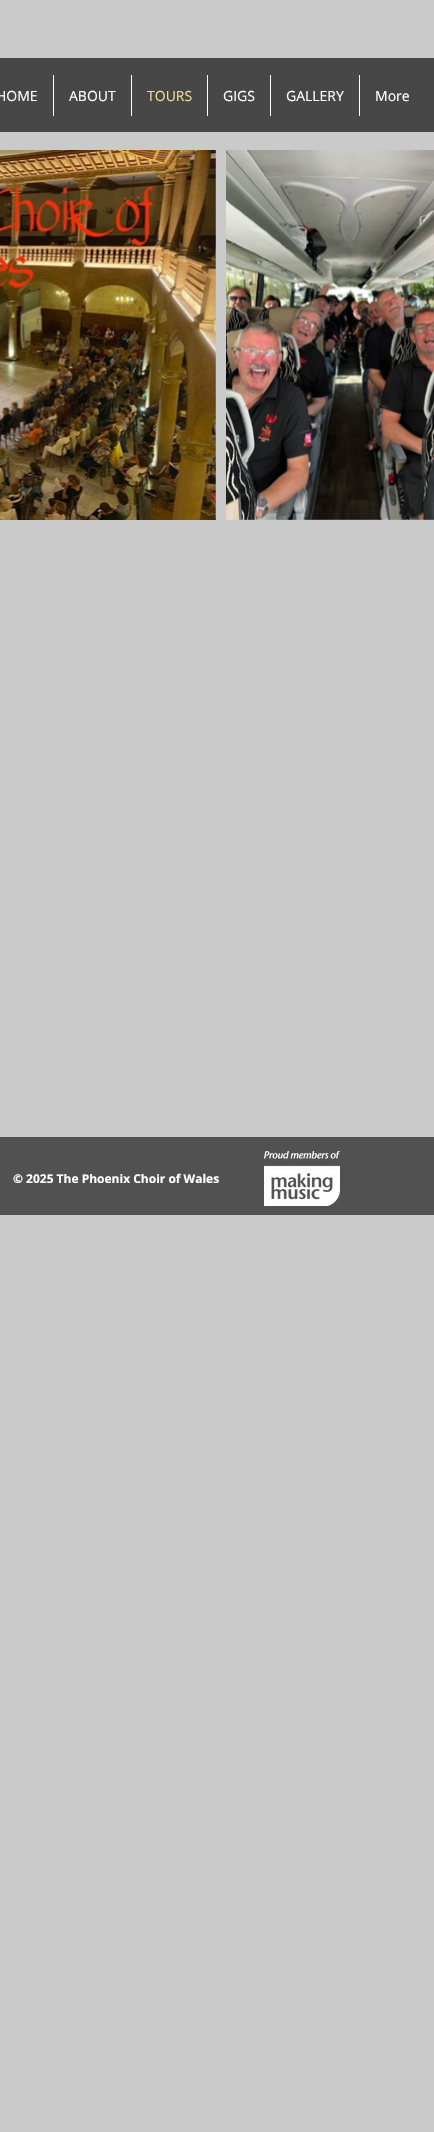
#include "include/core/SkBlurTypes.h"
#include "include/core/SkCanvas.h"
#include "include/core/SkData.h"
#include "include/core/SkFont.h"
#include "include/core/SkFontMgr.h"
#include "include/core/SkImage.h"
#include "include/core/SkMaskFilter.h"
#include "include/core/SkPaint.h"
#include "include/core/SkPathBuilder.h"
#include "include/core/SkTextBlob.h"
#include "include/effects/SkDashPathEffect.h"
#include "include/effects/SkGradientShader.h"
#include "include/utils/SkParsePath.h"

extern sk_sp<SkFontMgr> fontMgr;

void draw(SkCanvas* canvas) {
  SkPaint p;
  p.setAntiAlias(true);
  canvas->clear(SkColorSetRGB(202, 202, 202));
  p.setColor(SkColorSetRGB(71, 71, 71));
  canvas->drawRect(SkRect::MakeLTRB(0, 58, 434, 132), p);
  p.setColor(SK_ColorWHITE);
  canvas->drawRect(SkRect::MakeLTRB(53, 75, 54, 116), p);
  canvas->drawRect(SkRect::MakeLTRB(131, 75, 132, 116), p);
  canvas->drawRect(SkRect::MakeLTRB(207, 75, 208, 116), p);
  canvas->drawRect(SkRect::MakeLTRB(270, 75, 271, 116), p);
  canvas->drawRect(SkRect::MakeLTRB(359, 75, 360, 116), p);
  canvas->drawImageRect(SkImages::DeferredFromEncodedData(SkData::MakeFromFileName("images/1.png")), SkRect::MakeLTRB(0, 150, 216, 520), SkSamplingOptions());
  canvas->drawImageRect(SkImages::DeferredFromEncodedData(SkData::MakeFromFileName("images/2.png")), SkRect::MakeLTRB(226, 150, 434, 520), SkSamplingOptions());
  p.setColor(SkColorSetRGB(81, 81, 81));
  canvas->drawRect(SkRect::MakeLTRB(0, 1137, 434, 1215), p);
  canvas->drawImageRect(SkImages::DeferredFromEncodedData(SkData::MakeFromFileName("images/3.png")), SkRect::MakeLTRB(264, 1151, 340, 1206), SkSamplingOptions());
  SkFont font1(fontMgr->matchFamilyStyle("Open Sans", SkFontStyle::Normal()), 14);
  font1.setSubpixel(true);
  p.setColor(SK_ColorWHITE);
  canvas->drawString("HOME", -4, 101, font1, p);
  canvas->drawString("ABOUT", 69, 101, font1, p);
  p.setColor(SkColorSetRGB(239, 221, 141));
  canvas->drawString("TOURS", 147, 101, font1, p);
  p.setColor(SK_ColorWHITE);
  canvas->drawString("GIGS", 223, 101, font1, p);
  canvas->drawString("GALLERY", 286, 101, font1, p);
  canvas->drawString("More", 375, 101, font1, p);
  SkFont font2(fontMgr->matchFamilyStyle("Open Sans", SkFontStyle::Bold()), 12);
  font2.setSubpixel(true);
  canvas->drawString("© 2025 The Phoenix Choir of Wales", 13, 1183, font2, p);
}
